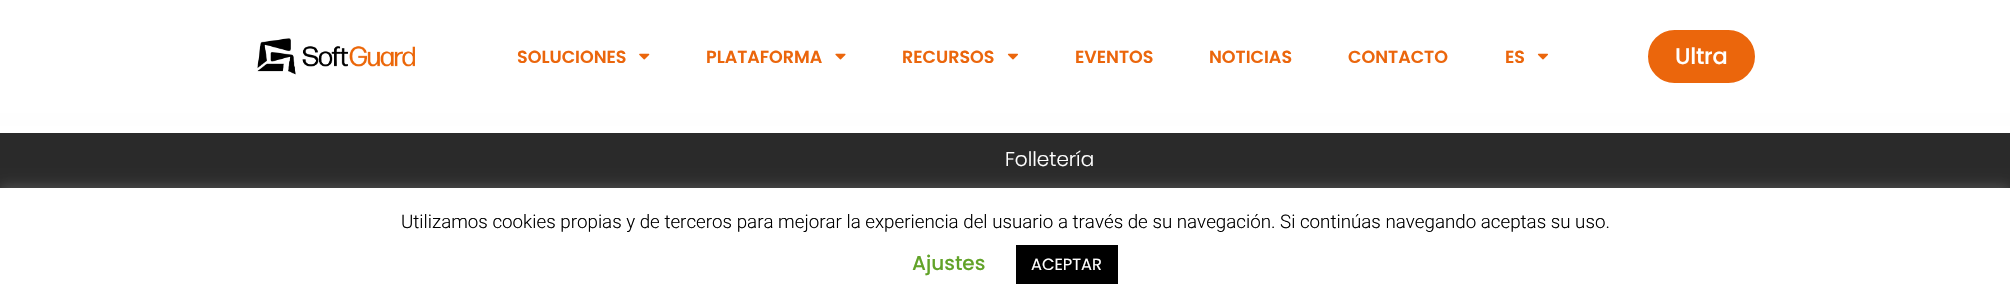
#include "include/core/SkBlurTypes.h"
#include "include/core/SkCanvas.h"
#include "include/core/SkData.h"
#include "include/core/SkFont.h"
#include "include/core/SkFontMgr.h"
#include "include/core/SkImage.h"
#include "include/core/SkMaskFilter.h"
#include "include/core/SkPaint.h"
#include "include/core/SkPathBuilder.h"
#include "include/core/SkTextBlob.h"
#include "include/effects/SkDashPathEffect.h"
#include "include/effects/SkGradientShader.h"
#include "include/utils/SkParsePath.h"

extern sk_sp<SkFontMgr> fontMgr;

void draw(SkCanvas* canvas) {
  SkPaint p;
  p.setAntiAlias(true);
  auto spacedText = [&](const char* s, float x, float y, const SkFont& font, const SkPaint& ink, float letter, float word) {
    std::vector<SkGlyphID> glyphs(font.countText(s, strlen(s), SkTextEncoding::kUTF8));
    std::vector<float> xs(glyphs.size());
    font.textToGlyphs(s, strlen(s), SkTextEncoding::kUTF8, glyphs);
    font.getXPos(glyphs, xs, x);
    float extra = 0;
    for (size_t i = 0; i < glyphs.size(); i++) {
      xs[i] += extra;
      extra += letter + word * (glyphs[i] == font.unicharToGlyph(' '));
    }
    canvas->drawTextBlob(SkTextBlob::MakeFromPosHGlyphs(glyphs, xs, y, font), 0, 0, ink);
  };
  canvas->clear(SkColorSetRGB(42, 42, 42));
  {
    const SkColor colors[] = {SkColorSetRGB(246, 246, 246), SK_ColorWHITE};
    const float stops[] = {0, 1};
    const SkPoint ends[] = {{1005, 0}, {1005, 133}};
    p.setShader(SkGradientShader::MakeLinear(ends, colors, stops, 2, SkTileMode::kClamp));
    p.setAlpha(255);
  }
  canvas->drawRect(SkRect::MakeLTRB(0, 113, 2010, 133), p);
  p.setShader(nullptr);
  p.setColor(SK_ColorWHITE);
  canvas->drawRect(SkRect::MakeLTRB(0, 0, 2010, 113), p);
  canvas->drawImageRect(SkImages::DeferredFromEncodedData(SkData::MakeFromFileName("images/1.png")), SkRect::MakeLTRB(257, 38, 415, 75), SkSamplingOptions());
  canvas->drawImageRect(SkImages::DeferredFromEncodedData(SkData::MakeFromFileName("images/2.png")), SkRect::MakeLTRB(639, 53, 650, 60), SkSamplingOptions());
  canvas->drawImageRect(SkImages::DeferredFromEncodedData(SkData::MakeFromFileName("images/3.png")), SkRect::MakeLTRB(835, 53, 846, 60), SkSamplingOptions());
  canvas->drawImageRect(SkImages::DeferredFromEncodedData(SkData::MakeFromFileName("images/4.png")), SkRect::MakeLTRB(1007, 53, 1018, 60), SkSamplingOptions());
  canvas->drawImageRect(SkImages::DeferredFromEncodedData(SkData::MakeFromFileName("images/4.png")), SkRect::MakeLTRB(1537, 53, 1548, 60), SkSamplingOptions());
  p.setColor(SkColorSetRGB(235, 102, 12));
  canvas->drawRoundRect(SkRect::MakeLTRB(1649.5f, 31.5f, 1753.5f, 81.5f), 25, 25, p);
  p.setStyle(SkPaint::kStroke_Style);
  p.setStrokeWidth(3);
  canvas->drawRoundRect(SkRect::MakeLTRB(1649.5f, 31.5f, 1753.5f, 81.5f), 25, 25, p);
  p.setStyle(SkPaint::kFill_Style);
  p.setColor(SkColorSetARGB(77, 172, 171, 171));
  p.setMaskFilter(SkMaskFilter::MakeBlur(kNormal_SkBlurStyle, 6));
  canvas->drawRect(SkRect::MakeLTRB(0, 186, 2010, 304), p);
  p.setMaskFilter(nullptr);
  p.setColor(SK_ColorWHITE);
  canvas->drawRect(SkRect::MakeLTRB(0, 188, 2010, 305), p);
  p.setColor(SK_ColorBLACK);
  canvas->drawRect(SkRect::MakeLTRB(1016, 245, 1118, 284), p);
  SkFont font1(fontMgr->matchFamilyStyle("Poppins", SkFontStyle(600, SkFontStyle::kNormal_Width, SkFontStyle::kUpright_Slant)), 17.5f);
  font1.setSubpixel(true);
  p.setColor(SkColorSetRGB(235, 102, 12));
  canvas->drawString("SOLUCIONES", 517, 63, font1, p);
  canvas->drawString("PLATAFORMA", 706, 63, font1, p);
  canvas->drawString("RECURSOS", 902, 63, font1, p);
  canvas->drawString("EVENTOS", 1075, 63, font1, p);
  canvas->drawString("NOTICIAS", 1209, 63, font1, p);
  canvas->drawString("CONTACTO", 1348, 63, font1, p);
  canvas->drawString("ES", 1505, 63, font1, p);
  SkFont font2(fontMgr->matchFamilyStyle("Poppins", SkFontStyle(500, SkFontStyle::kNormal_Width, SkFontStyle::kUpright_Slant)), 22.5f);
  font2.setSubpixel(true);
  p.setColor(SK_ColorWHITE);
  spacedText("Ultra", 1675, 64, font2, p, -0.25f, 0);
  SkFont font3(fontMgr->matchFamilyStyle("Poppins", SkFontStyle(300, SkFontStyle::kNormal_Width, SkFontStyle::kUpright_Slant)), 20);
  font3.setSubpixel(true);
  canvas->drawString("Folletería", 1005, 166, font3, p);
  SkFont font4(fontMgr->matchFamilyStyle("Roboto", SkFontStyle(300, SkFontStyle::kNormal_Width, SkFontStyle::kUpright_Slant)), 18.75f);
  font4.setSubpixel(true);
  p.setColor(SK_ColorBLACK);
  canvas->drawString("Utilizamos cookies propias y de terceros para mejorar la experiencia del usuario a través de su navegación. Si continúas navegando aceptas su uso.", 401, 228, font4, p);
  SkFont font5(fontMgr->matchFamilyStyle("Poppins", SkFontStyle(500, SkFontStyle::kNormal_Width, SkFontStyle::kUpright_Slant)), 20);
  font5.setSubpixel(true);
  p.setColor(SkColorSetRGB(98, 163, 41));
  canvas->drawString("Ajustes", 912, 270, font5, p);
  SkFont font6(fontMgr->matchFamilyStyle("Poppins", SkFontStyle::Normal()), 16.25f);
  font6.setSubpixel(true);
  p.setColor(SK_ColorWHITE);
  canvas->drawString("ACEPTAR", 1031, 270, font6, p);
}
